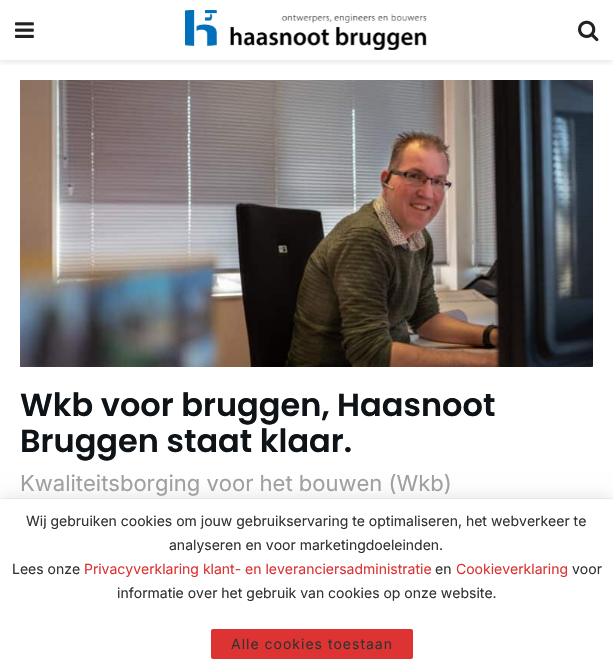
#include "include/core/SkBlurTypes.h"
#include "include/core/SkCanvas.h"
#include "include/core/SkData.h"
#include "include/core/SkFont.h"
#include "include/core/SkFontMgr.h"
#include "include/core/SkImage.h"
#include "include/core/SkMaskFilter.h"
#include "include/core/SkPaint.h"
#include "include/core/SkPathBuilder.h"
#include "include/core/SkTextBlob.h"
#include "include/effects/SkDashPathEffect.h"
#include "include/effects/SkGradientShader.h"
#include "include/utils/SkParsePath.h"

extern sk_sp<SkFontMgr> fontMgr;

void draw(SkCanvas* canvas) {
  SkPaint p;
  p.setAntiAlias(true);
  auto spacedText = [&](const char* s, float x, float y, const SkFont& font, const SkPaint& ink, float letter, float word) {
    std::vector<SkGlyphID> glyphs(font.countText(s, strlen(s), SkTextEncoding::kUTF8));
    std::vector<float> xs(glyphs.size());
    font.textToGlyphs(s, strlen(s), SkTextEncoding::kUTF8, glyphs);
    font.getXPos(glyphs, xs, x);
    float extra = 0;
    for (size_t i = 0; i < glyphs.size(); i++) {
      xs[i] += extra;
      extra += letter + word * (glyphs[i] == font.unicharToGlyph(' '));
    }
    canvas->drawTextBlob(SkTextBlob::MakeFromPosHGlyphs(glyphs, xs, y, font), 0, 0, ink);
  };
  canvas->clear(SK_ColorWHITE);
  canvas->save();
  canvas->clipRect(SkRect::MakeLTRB(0, 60, 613, 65));
  p.setColor(SkColorSetARGB(26, 0, 0, 0));
  p.setMaskFilter(SkMaskFilter::MakeBlur(kNormal_SkBlurStyle, 3));
  canvas->drawRect(SkRect::MakeLTRB(0, 2, 613, 62), p);
  p.setMaskFilter(nullptr);
  canvas->restore();
  canvas->drawImageRect(SkImages::DeferredFromEncodedData(SkData::MakeFromFileName("images/1.png")), SkRect::MakeLTRB(15, 22, 34, 38), SkSamplingOptions());
  canvas->drawImageRect(SkImages::DeferredFromEncodedData(SkData::MakeFromFileName("images/2.png")), SkRect::MakeLTRB(185, 10, 427, 50), SkSamplingOptions());
  canvas->drawImageRect(SkImages::DeferredFromEncodedData(SkData::MakeFromFileName("images/3.png")), SkRect::MakeLTRB(578, 20, 599, 42), SkSamplingOptions());
  canvas->drawImageRect(SkImages::DeferredFromEncodedData(SkData::MakeFromFileName("images/4.png")), SkRect::MakeLTRB(20, 80, 593, 367), SkSamplingOptions());
  p.setColor(SkColorSetARGB(38, 0, 0, 0));
  p.setMaskFilter(SkMaskFilter::MakeBlur(kNormal_SkBlurStyle, 10));
  canvas->drawRect(SkRect::MakeLTRB(0, 501, 613, 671), p);
  p.setMaskFilter(nullptr);
  p.setColor(SkColorSetARGB(51, 0, 0, 0));
  p.setMaskFilter(SkMaskFilter::MakeBlur(kNormal_SkBlurStyle, 0.5f));
  canvas->drawRect(SkRect::MakeLTRB(0, 499, 613, 669), p);
  p.setMaskFilter(nullptr);
  p.setColor(SK_ColorWHITE);
  canvas->drawRect(SkRect::MakeLTRB(0, 499, 613, 669), p);
  p.setColor(SkColorSetRGB(221, 51, 51));
  canvas->drawRoundRect(SkRect::MakeLTRB(211, 629, 413, 659), 2, 2, p);
  SkFont font1(fontMgr->matchFamilyStyle("Poppins", SkFontStyle(600, SkFontStyle::kNormal_Width, SkFontStyle::kUpright_Slant)), 32);
  font1.setSubpixel(true);
  p.setColor(SkColorSetRGB(13, 19, 23));
  canvas->drawString("Wkb voor bruggen, Haasnoot", 20, 416, font1, p);
  canvas->drawString("Bruggen staat klaar.", 20, 452, font1, p);
  SkFont font2(fontMgr->matchFamilyStyle("Inter", SkFontStyle::Normal()), 22);
  font2.setSubpixel(true);
  p.setColor(SkColorSetRGB(160, 160, 160));
  canvas->drawString("Kwaliteitsborging voor het bouwen (Wkb)", 20, 491, font2, p);
  SkFont font3(fontMgr->matchFamilyStyle("Inter", SkFontStyle::Normal()), 14);
  font3.setSubpixel(true);
  p.setColor(SkColorSetRGB(51, 51, 51));
  canvas->drawString("Wij gebruiken cookies om jouw gebruikservaring te optimaliseren, het webverkeer te", 26, 526, font3, p);
  canvas->drawString("analyseren en voor marketingdoeleinden.", 169, 550, font3, p);
  canvas->drawString("Lees onze", 12, 574, font3, p);
  p.setColor(SkColorSetRGB(221, 51, 51));
  canvas->drawString("Privacyverklaring klant- en leveranciersadministratie", 84, 574, font3, p);
  p.setColor(SkColorSetRGB(51, 51, 51));
  canvas->drawString("en", 435, 574, font3, p);
  p.setColor(SkColorSetRGB(221, 51, 51));
  canvas->drawString("Cookieverklaring", 456, 574, font3, p);
  p.setColor(SkColorSetRGB(51, 51, 51));
  canvas->drawString("voor", 572, 574, font3, p);
  canvas->drawString("informatie over het gebruik van cookies op onze website.", 117, 598, font3, p);
  spacedText("Alle cookies toestaan", 231, 649, font3, p, 1, 0);
}
